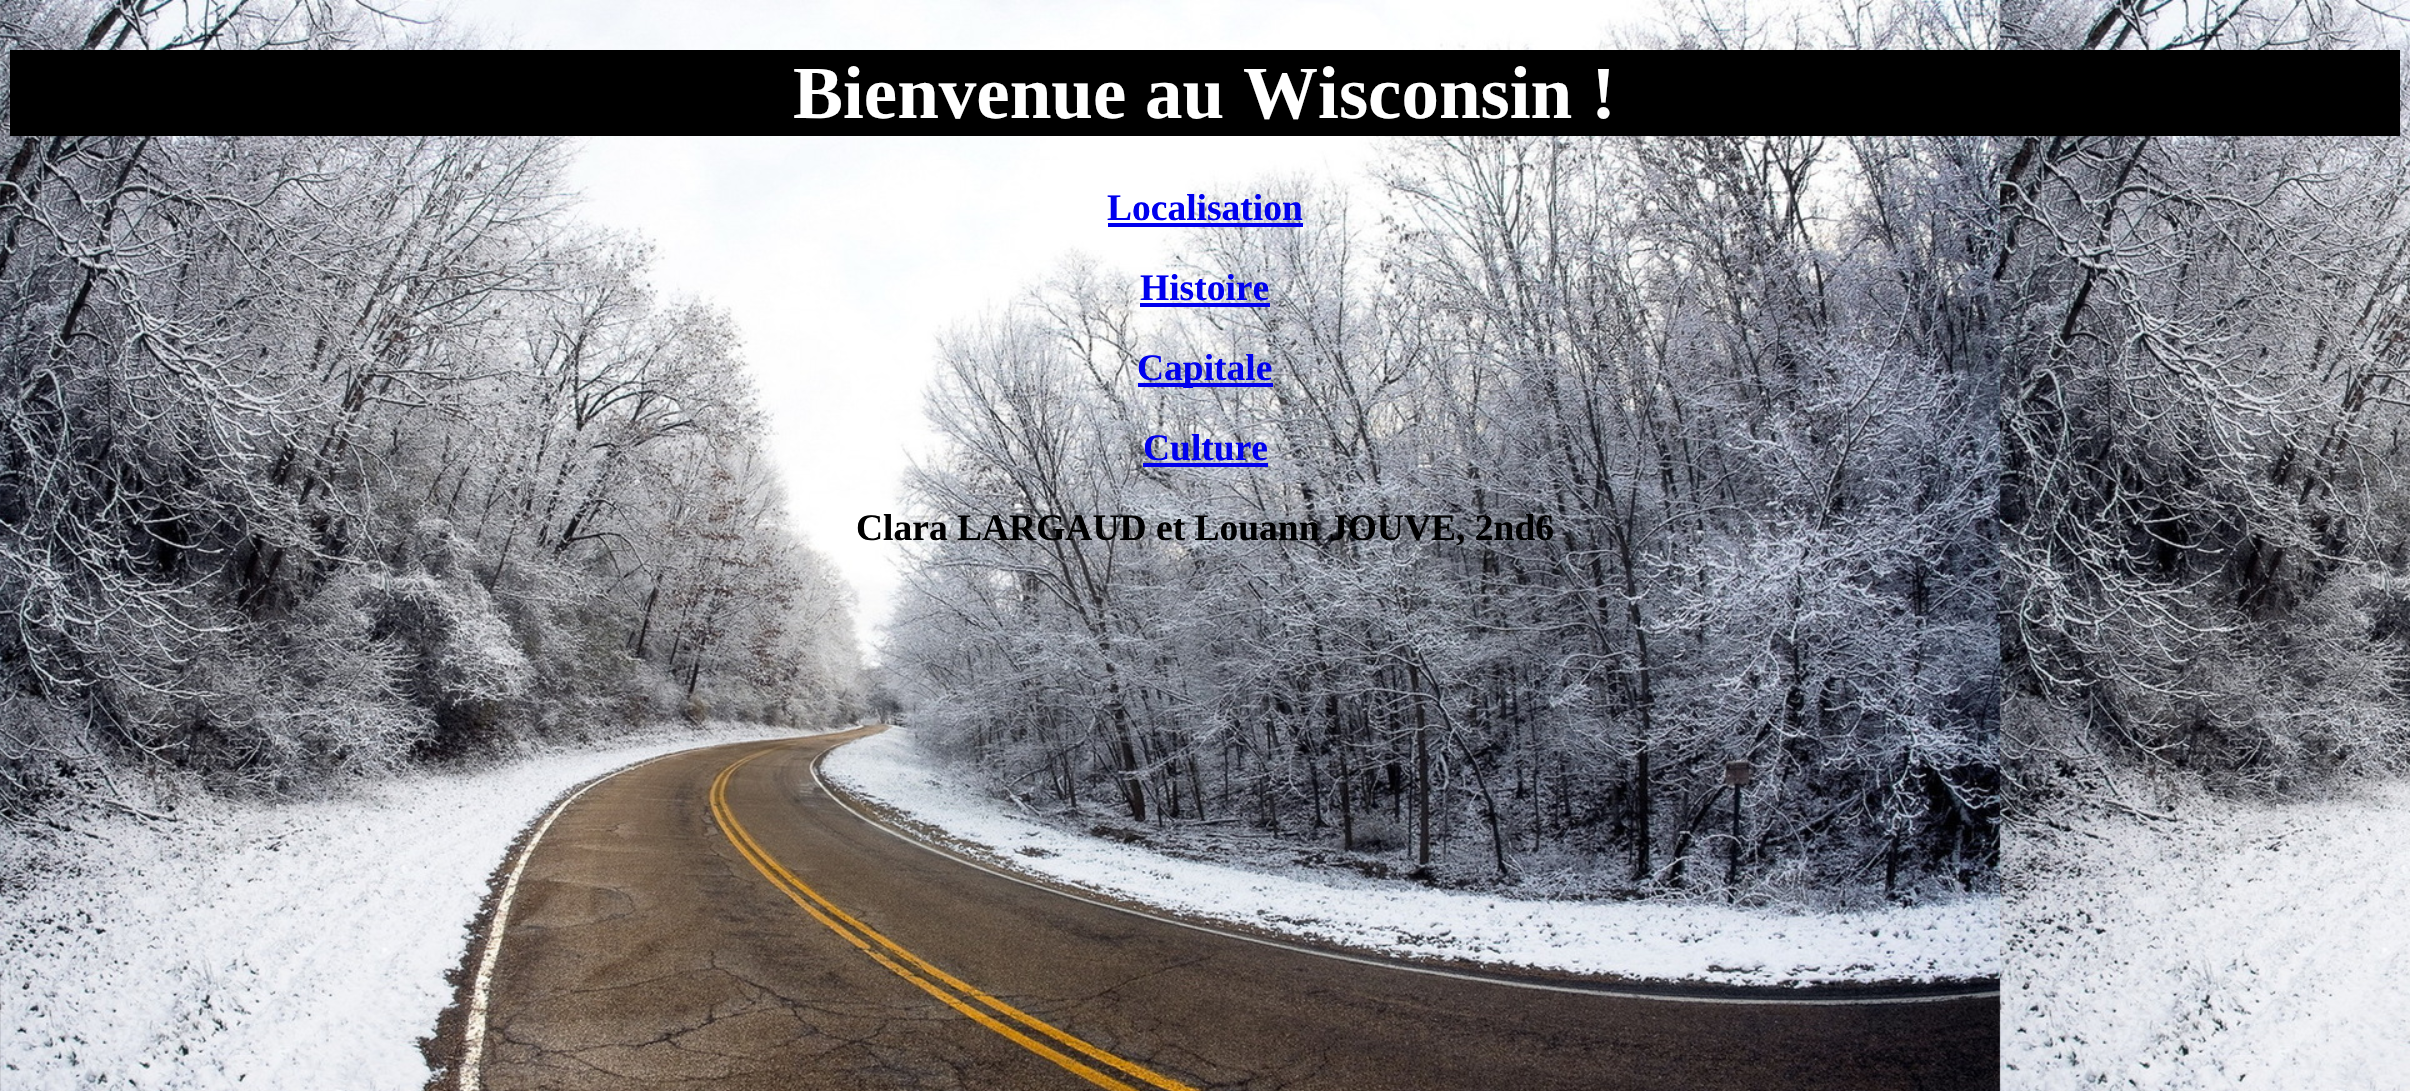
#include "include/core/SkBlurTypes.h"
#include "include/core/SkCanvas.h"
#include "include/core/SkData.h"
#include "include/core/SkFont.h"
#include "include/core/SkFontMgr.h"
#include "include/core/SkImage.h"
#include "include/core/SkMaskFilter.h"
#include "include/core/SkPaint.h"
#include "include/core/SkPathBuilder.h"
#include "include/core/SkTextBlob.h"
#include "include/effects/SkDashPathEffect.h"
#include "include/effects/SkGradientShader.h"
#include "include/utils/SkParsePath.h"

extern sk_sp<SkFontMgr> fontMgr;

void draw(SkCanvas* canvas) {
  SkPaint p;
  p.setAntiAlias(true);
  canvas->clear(SK_ColorWHITE);
  canvas->drawImageRect(SkImages::DeferredFromEncodedData(SkData::MakeFromFileName("images/1.png")), SkRect::MakeLTRB(0, 0, 2410, 1091), SkSamplingOptions());
  p.setColor(SK_ColorBLACK);
  canvas->drawRect(SkRect::MakeLTRB(10, 50, 2400, 136), p);
  p.setColor(SkColorSetRGB(0, 0, 238));
  canvas->drawRect(SkRect::MakeLTRB(1108, 223, 1303, 227), p);
  canvas->drawRect(SkRect::MakeLTRB(1140, 303, 1270, 307), p);
  canvas->drawRect(SkRect::MakeLTRB(1138, 383, 1273, 387), p);
  canvas->drawRect(SkRect::MakeLTRB(1143, 463, 1268, 467), p);
  SkFont font1(fontMgr->matchFamilyStyle("Liberation Serif", SkFontStyle::Bold()), 75);
  font1.setSubpixel(true);
  p.setColor(SK_ColorWHITE);
  canvas->drawString("Bienvenue au Wisconsin !", 793, 118, font1, p);
  SkFont font2(fontMgr->matchFamilyStyle("Liberation Serif", SkFontStyle::Bold()), 37.5f);
  font2.setSubpixel(true);
  p.setColor(SkColorSetRGB(0, 0, 238));
  canvas->drawString("Localisation", 1107, 220, font2, p);
  canvas->drawString("Histoire", 1140, 300, font2, p);
  canvas->drawString("Capitale", 1137, 380, font2, p);
  canvas->drawString("Culture", 1143, 460, font2, p);
  p.setColor(SK_ColorBLACK);
  canvas->drawString("Clara LARGAUD et Louann JOUVE, 2nd6", 856, 540, font2, p);
}
